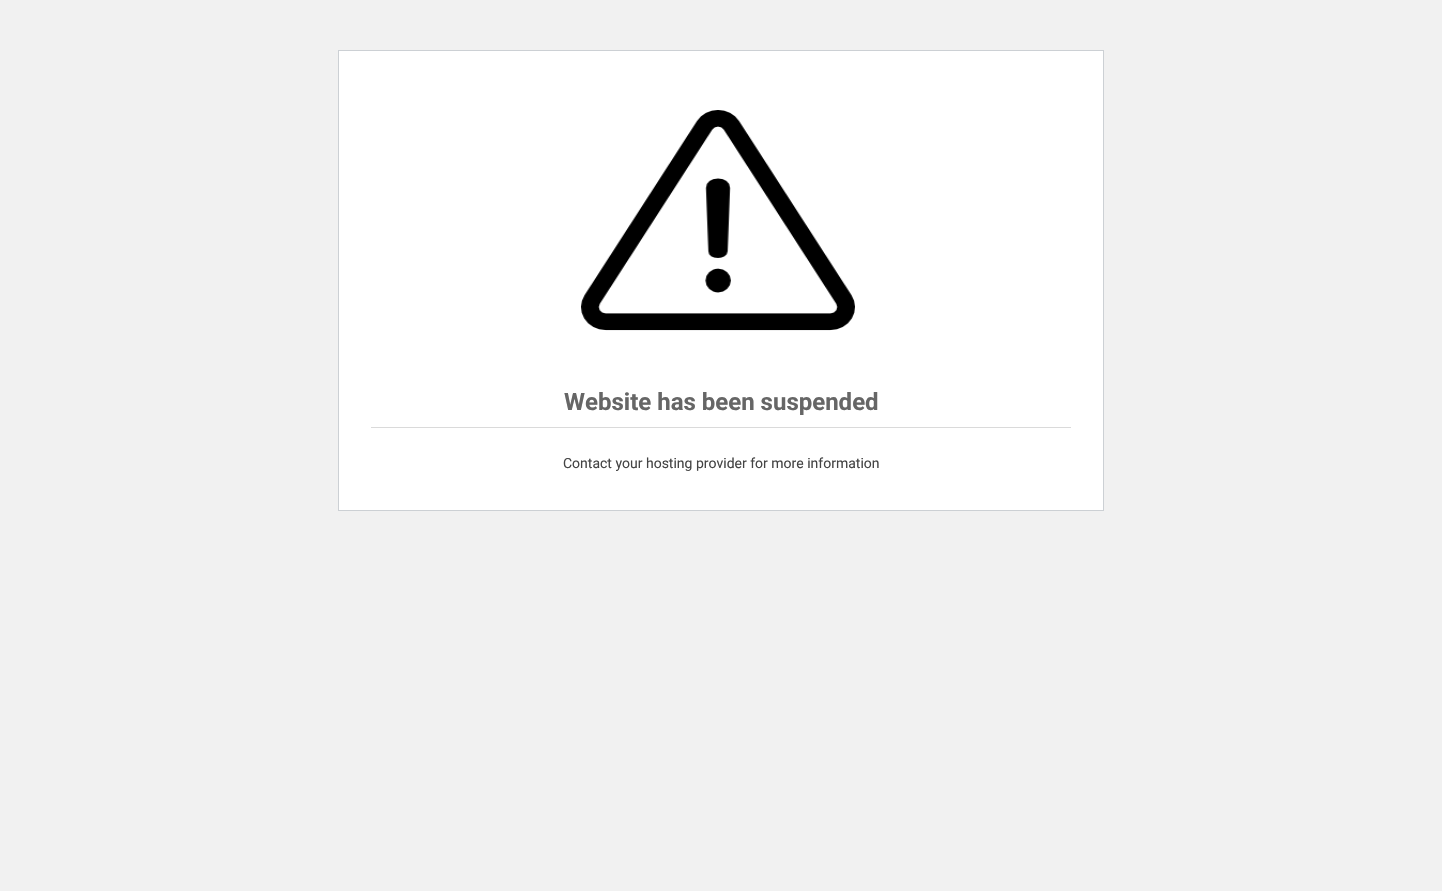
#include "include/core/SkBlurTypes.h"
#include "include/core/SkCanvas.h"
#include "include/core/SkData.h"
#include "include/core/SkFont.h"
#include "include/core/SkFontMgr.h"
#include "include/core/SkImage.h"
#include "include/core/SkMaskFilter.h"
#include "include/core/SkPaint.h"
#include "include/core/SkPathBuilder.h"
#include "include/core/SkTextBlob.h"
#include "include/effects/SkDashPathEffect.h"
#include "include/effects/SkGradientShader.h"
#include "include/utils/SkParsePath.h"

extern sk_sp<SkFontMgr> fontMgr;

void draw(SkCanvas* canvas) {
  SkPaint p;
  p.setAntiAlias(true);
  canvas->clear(SkColorSetRGB(241, 241, 241));
  p.setColor(SK_ColorWHITE);
  canvas->drawRect(SkRect::MakeLTRB(338.5f, 50.5f, 1103.5f, 510.5f), p);
  p.setStyle(SkPaint::kStroke_Style);
  p.setStrokeWidth(1);
  p.setColor(SkColorSetRGB(204, 208, 212));
  canvas->drawRect(SkRect::MakeLTRB(338.5f, 50.5f, 1103.5f, 510.5f), p);
  canvas->drawImageRect(SkImages::DeferredFromEncodedData(SkData::MakeFromFileName("images/1.png")), SkRect::MakeLTRB(581, 110, 855, 331), SkSamplingOptions());
  p.setStyle(SkPaint::kFill_Style);
  p.setColor(SkColorSetRGB(218, 218, 218));
  canvas->drawRect(SkRect::MakeLTRB(371, 427, 1071, 428), p);
  SkFont font1(fontMgr->matchFamilyStyle("Roboto", SkFontStyle::Bold()), 24);
  font1.setSubpixel(true);
  p.setColor(SkColorSetRGB(102, 102, 102));
  canvas->drawString("Website has been suspended", 564, 410, font1, p);
  SkFont font2(fontMgr->matchFamilyStyle("Roboto", SkFontStyle::Normal()), 14);
  font2.setSubpixel(true);
  p.setColor(SkColorSetRGB(68, 68, 68));
  canvas->drawString("Contact your hosting provider for more information", 563, 468, font2, p);
}
